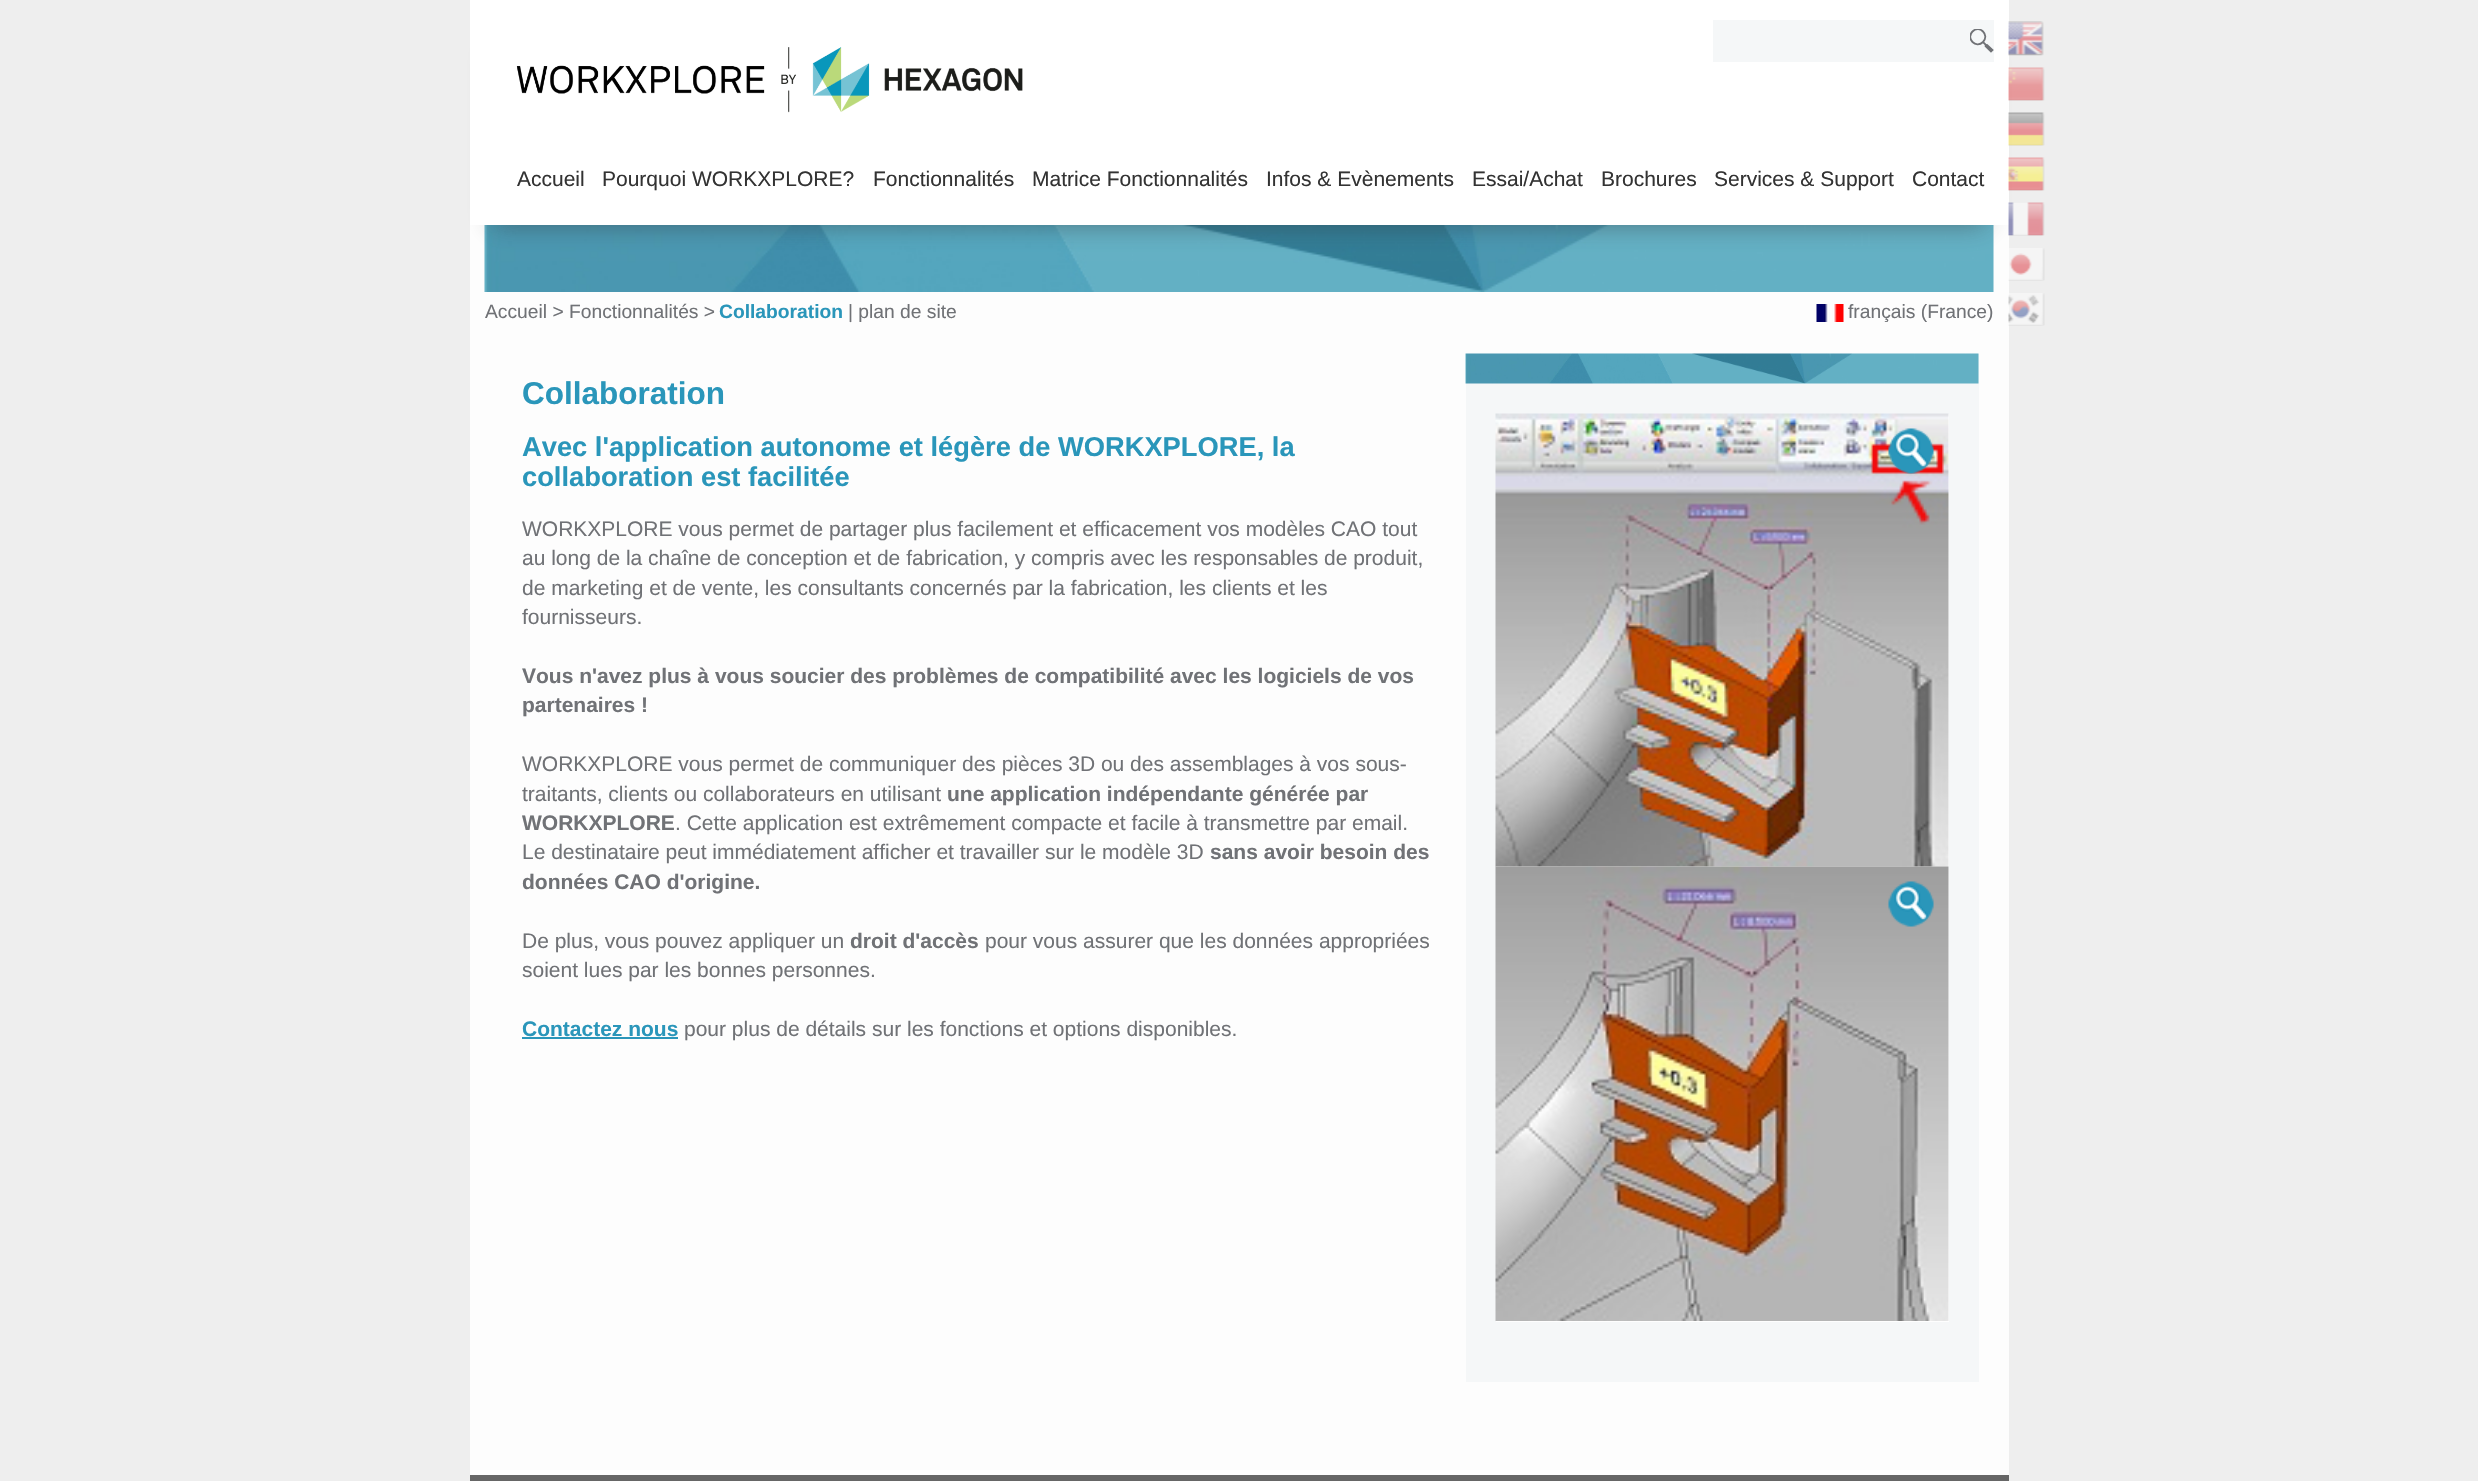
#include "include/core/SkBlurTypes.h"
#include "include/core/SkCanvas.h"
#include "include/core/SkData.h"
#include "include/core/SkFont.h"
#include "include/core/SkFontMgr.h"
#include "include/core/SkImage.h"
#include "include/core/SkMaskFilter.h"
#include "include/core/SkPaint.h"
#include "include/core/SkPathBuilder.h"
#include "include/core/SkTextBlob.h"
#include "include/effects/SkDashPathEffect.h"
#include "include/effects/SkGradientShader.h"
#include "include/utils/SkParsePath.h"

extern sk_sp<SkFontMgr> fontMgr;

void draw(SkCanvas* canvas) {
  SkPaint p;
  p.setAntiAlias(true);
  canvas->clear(SkColorSetRGB(238, 238, 238));
  p.setColor(SkColorSetRGB(253, 253, 253));
  canvas->drawRect(SkRect::MakeLTRB(470, 225, 2009, 1475), p);
  canvas->drawImageRect(SkImages::DeferredFromEncodedData(SkData::MakeFromFileName("images/9.png")), SkRect::MakeLTRB(484, 225, 1994, 292), SkSamplingOptions());
  p.setColor(SkColorSetARGB(120, 51, 51, 51));
  p.setMaskFilter(SkMaskFilter::MakeBlur(kNormal_SkBlurStyle, 12));
  canvas->drawRect(SkRect::MakeLTRB(494, 48, 1985, 225), p);
  p.setMaskFilter(nullptr);
  p.setColor(SK_ColorWHITE);
  canvas->drawRect(SkRect::MakeLTRB(470, 0, 2009, 225), p);
  canvas->drawImageRect(SkImages::DeferredFromEncodedData(SkData::MakeFromFileName("images/1.png")), SkRect::MakeLTRB(516, 47, 1023, 113), SkSamplingOptions());
  p.setColor(SkColorSetRGB(245, 247, 248));
  canvas->drawRect(SkRect::MakeLTRB(1713, 20, 1994, 62), p);
  canvas->save();
  canvas->clipRect(SkRect::MakeLTRB(1970, 29, 1994, 53));
  p.setStyle(SkPaint::kStroke_Style);
  p.setStrokeWidth(1.8f);
  p.setStrokeCap(SkPaint::kRound_Cap);
  p.setColor(SkColorSetRGB(112, 114, 118));
  canvas->drawPath(SkPathBuilder().moveTo(1983, 42).cubicTo(1990, 35, 1979.5f, 24.5f, 1972.5f, 31.5f).cubicTo(1965.5f, 38.5f, 1976, 49, 1983, 42).lineTo(1991.5f, 50.5f).moveTo(1987, 45).lineTo(1992.5f, 50).lineTo(1991, 51.5f).lineTo(1985.5f, 46).detach(), p);
  canvas->restore();
  canvas->drawImageRect(SkImages::DeferredFromEncodedData(SkData::MakeFromFileName("images/2.png")), SkRect::MakeLTRB(2008, 21, 2044, 56), SkSamplingOptions());
  canvas->drawImageRect(SkImages::DeferredFromEncodedData(SkData::MakeFromFileName("images/3.png")), SkRect::MakeLTRB(2008, 67, 2045, 101), SkSamplingOptions());
  canvas->drawImageRect(SkImages::DeferredFromEncodedData(SkData::MakeFromFileName("images/4.png")), SkRect::MakeLTRB(2008, 112, 2045, 146), SkSamplingOptions());
  canvas->drawImageRect(SkImages::DeferredFromEncodedData(SkData::MakeFromFileName("images/5.png")), SkRect::MakeLTRB(2008, 157, 2045, 191), SkSamplingOptions());
  canvas->drawImageRect(SkImages::DeferredFromEncodedData(SkData::MakeFromFileName("images/6.png")), SkRect::MakeLTRB(2008, 202, 2045, 236), SkSamplingOptions());
  canvas->drawImageRect(SkImages::DeferredFromEncodedData(SkData::MakeFromFileName("images/7.png")), SkRect::MakeLTRB(2008, 248, 2045, 281), SkSamplingOptions());
  canvas->drawImageRect(SkImages::DeferredFromEncodedData(SkData::MakeFromFileName("images/8.png")), SkRect::MakeLTRB(2008, 293, 2045, 326), SkSamplingOptions());
  canvas->drawImageRect(SkImages::DeferredFromEncodedData(SkData::MakeFromFileName("images/10.png")), SkRect::MakeLTRB(1816, 304, 1844, 322), SkSamplingOptions());
  p.setStyle(SkPaint::kFill_Style);
  p.setColor(SkColorSetRGB(42, 150, 186));
  canvas->drawRect(SkRect::MakeLTRB(522, 1037, 678, 1039), p);
  p.setColor(SkColorSetRGB(245, 247, 248));
  canvas->drawRect(SkRect::MakeLTRB(1466, 354, 1979, 1382), p);
  canvas->drawImageRect(SkImages::DeferredFromEncodedData(SkData::MakeFromFileName("images/11.png")), SkRect::MakeLTRB(1465, 353, 1979, 384), SkSamplingOptions());
  p.setColor(SkColorSetRGB(254, 254, 254));
  canvas->drawRect(SkRect::MakeLTRB(1496, 414, 1949, 1322), p);
  canvas->drawImageRect(SkImages::DeferredFromEncodedData(SkData::MakeFromFileName("images/12.png")), SkRect::MakeLTRB(1495, 413, 1949, 867), SkSamplingOptions());
  canvas->drawImageRect(SkImages::DeferredFromEncodedData(SkData::MakeFromFileName("images/13.png")), SkRect::MakeLTRB(1888, 428, 1934, 474), SkSamplingOptions());
  canvas->drawImageRect(SkImages::DeferredFromEncodedData(SkData::MakeFromFileName("images/14.png")), SkRect::MakeLTRB(1495, 866, 1949, 1321), SkSamplingOptions());
  canvas->drawImageRect(SkImages::DeferredFromEncodedData(SkData::MakeFromFileName("images/15.png")), SkRect::MakeLTRB(1888, 881, 1934, 927), SkSamplingOptions());
  p.setColor(SkColorSetRGB(102, 102, 102));
  canvas->drawRect(SkRect::MakeLTRB(470, 1475, 2009, 1481), p);
  SkFont font1(fontMgr->matchFamilyStyle("Liberation Sans", SkFontStyle::Normal()), 21);
  font1.setSubpixel(true);
  p.setColor(SkColorSetRGB(51, 51, 51));
  canvas->drawString("Accueil", 517, 186, font1, p);
  canvas->drawString("Pourquoi WORKXPLORE?", 602, 186, font1, p);
  canvas->drawString("Fonctionnalités", 873, 186, font1, p);
  canvas->drawString("Matrice Fonctionnalités", 1032, 186, font1, p);
  canvas->drawString("Infos & Evènements", 1266, 186, font1, p);
  canvas->drawString("Essai/Achat", 1472, 186, font1, p);
  canvas->drawString("Brochures", 1601, 186, font1, p);
  canvas->drawString("Services & Support", 1714, 186, font1, p);
  canvas->drawString("Contact", 1912, 186, font1, p);
  SkFont font2(fontMgr->matchFamilyStyle("Liberation Sans", SkFontStyle::Normal()), 19.25f);
  font2.setSubpixel(true);
  p.setColor(SkColorSetRGB(112, 114, 118));
  canvas->drawString("Accueil > Fonctionnalités >", 485, 318, font2, p);
  SkFont font3(fontMgr->matchFamilyStyle("Liberation Sans", SkFontStyle::Bold()), 19.25f);
  font3.setSubpixel(true);
  p.setColor(SkColorSetRGB(42, 150, 186));
  canvas->drawString("Collaboration", 719, 318, font3, p);
  p.setColor(SkColorSetRGB(112, 114, 118));
  canvas->drawString("| plan de site", 848, 318, font2, p);
  canvas->drawString("français (France)", 1848, 318, font2, p);
  SkFont font4(fontMgr->matchFamilyStyle("Liberation Sans", SkFontStyle::Bold()), 31.5f);
  font4.setSubpixel(true);
  p.setColor(SkColorSetRGB(42, 150, 186));
  canvas->drawString("Collaboration", 522, 404, font4, p);
  SkFont font5(fontMgr->matchFamilyStyle("Liberation Sans", SkFontStyle::Bold()), 27.3f);
  font5.setSubpixel(true);
  canvas->drawString("Avec l'application autonome et légère de WORKXPLORE, la", 522, 456, font5, p);
  canvas->drawString("collaboration est facilitée", 522, 486, font5, p);
  p.setColor(SkColorSetRGB(112, 114, 118));
  canvas->drawString("WORKXPLORE vous permet de partager plus facilement et efficacement vos modèles CAO tout", 522, 536, font1, p);
  canvas->drawString("au long de la chaîne de conception et de fabrication, y compris avec les responsables de produit,", 522, 565, font1, p);
  canvas->drawString("de marketing et de vente, les consultants concernés par la fabrication, les clients et les", 522, 595, font1, p);
  canvas->drawString("fournisseurs.", 522, 624, font1, p);
  SkFont font6(fontMgr->matchFamilyStyle("Liberation Sans", SkFontStyle::Bold()), 21);
  font6.setSubpixel(true);
  canvas->drawString("Vous n'avez plus à vous soucier des problèmes de compatibilité avec les logiciels de vos", 522, 683, font6, p);
  canvas->drawString("partenaires !", 522, 712, font6, p);
  canvas->drawString("WORKXPLORE vous permet de communiquer des pièces 3D ou des assemblages à vos sous-", 522, 771, font1, p);
  canvas->drawString("traitants, clients ou collaborateurs en utilisant", 522, 801, font1, p);
  canvas->drawString("une application indépendante générée par", 947, 801, font6, p);
  canvas->drawString("WORKXPLORE", 522, 830, font6, p);
  canvas->drawString(". Cette application est extrêmement compacte et facile à transmettre par email.", 675, 830, font1, p);
  canvas->drawString("Le destinataire peut immédiatement afficher et travailler sur le modèle 3D", 522, 859, font1, p);
  canvas->drawString("sans avoir besoin des", 1210, 859, font6, p);
  canvas->drawString("données CAO d'origine.", 522, 889, font6, p);
  canvas->drawString("De plus, vous pouvez appliquer un", 522, 948, font1, p);
  canvas->drawString("droit d'accès", 850, 948, font6, p);
  canvas->drawString("pour vous assurer que les données appropriées", 985, 948, font1, p);
  canvas->drawString("soient lues par les bonnes personnes.", 522, 977, font1, p);
  p.setColor(SkColorSetRGB(42, 150, 186));
  canvas->drawString("Contactez nous", 522, 1036, font6, p);
  p.setColor(SkColorSetRGB(112, 114, 118));
  canvas->drawString("pour plus de détails sur les fonctions et options disponibles.", 684, 1036, font1, p);
}
